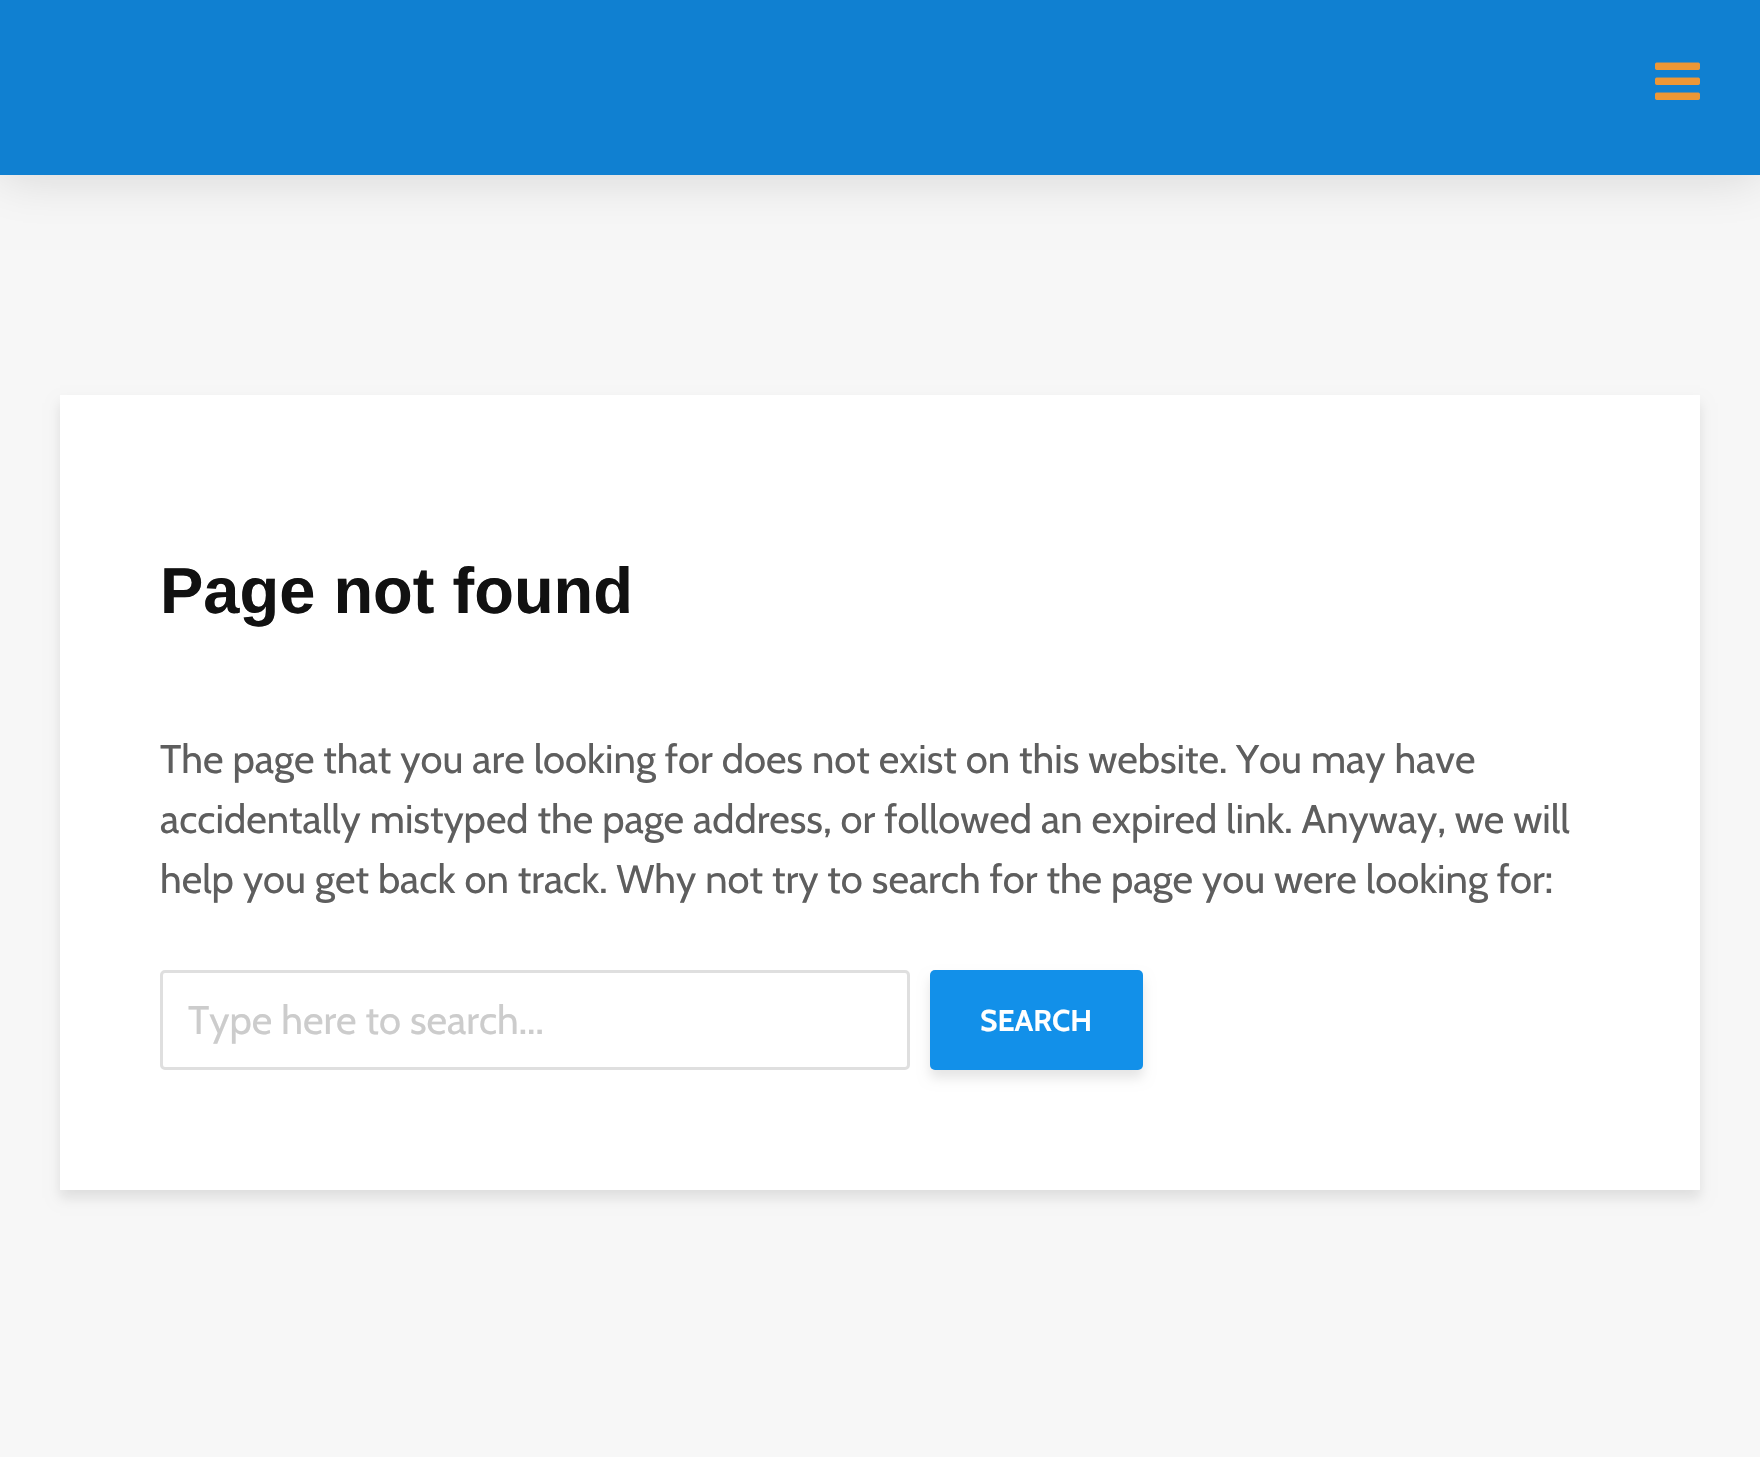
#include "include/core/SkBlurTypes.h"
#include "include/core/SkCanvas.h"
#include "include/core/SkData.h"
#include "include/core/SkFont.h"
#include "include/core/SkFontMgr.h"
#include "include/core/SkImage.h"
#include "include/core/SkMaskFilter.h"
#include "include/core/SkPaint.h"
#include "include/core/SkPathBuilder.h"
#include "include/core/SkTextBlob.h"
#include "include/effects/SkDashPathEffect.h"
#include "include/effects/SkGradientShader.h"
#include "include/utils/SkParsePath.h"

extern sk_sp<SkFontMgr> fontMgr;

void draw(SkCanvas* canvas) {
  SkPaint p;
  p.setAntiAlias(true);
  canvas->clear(SkColorSetRGB(247, 247, 247));
  p.setColor(SkColorSetARGB(38, 0, 0, 0));
  p.setMaskFilter(SkMaskFilter::MakeBlur(kNormal_SkBlurStyle, 25));
  canvas->drawRect(SkRect::MakeLTRB(0, 0, 1760, 175), p);
  p.setMaskFilter(nullptr);
  p.setColor(SkColorSetRGB(16, 128, 209));
  canvas->drawRect(SkRect::MakeLTRB(0, 0, 1760, 175), p);
  canvas->drawImageRect(SkImages::DeferredFromEncodedData(SkData::MakeFromFileName("images/1.png")), SkRect::MakeLTRB(1655, 62, 1700, 100), SkSamplingOptions());
  p.setColor(SkColorSetARGB(26, 0, 1, 1));
  p.setMaskFilter(SkMaskFilter::MakeBlur(kNormal_SkBlurStyle, 6));
  canvas->drawRect(SkRect::MakeLTRB(60, 403, 1700, 1198), p);
  p.setMaskFilter(nullptr);
  p.setColor(SK_ColorWHITE);
  canvas->drawRect(SkRect::MakeLTRB(60, 395, 1700, 1190), p);
  p.setStyle(SkPaint::kStroke_Style);
  p.setStrokeWidth(3);
  p.setColor(SkColorSetRGB(223, 223, 223));
  canvas->drawRoundRect(SkRect::MakeLTRB(161.5f, 971.5f, 908.5f, 1068.5f), 3.5f, 3.5f, p);
  p.setStyle(SkPaint::kFill_Style);
  p.setColor(SkColorSetARGB(26, 0, 0, 0));
  p.setMaskFilter(SkMaskFilter::MakeBlur(kNormal_SkBlurStyle, 6));
  canvas->drawRoundRect(SkRect::MakeLTRB(930, 978, 1143, 1078), 5, 5, p);
  p.setMaskFilter(nullptr);
  p.setColor(SkColorSetRGB(18, 144, 233));
  canvas->drawRoundRect(SkRect::MakeLTRB(930, 970, 1143, 1070), 5, 5, p);
  SkFont font1(fontMgr->matchFamilyStyle("Liberation Sans", SkFontStyle::Bold()), 65);
  font1.setSubpixel(true);
  p.setColor(SkColorSetRGB(17, 17, 17));
  canvas->drawString("Page not found", 160, 613, font1, p);
  SkFont font2(fontMgr->matchFamilyStyle("Cabin", SkFontStyle::Normal()), 40);
  font2.setSubpixel(true);
  p.setColor(SkColorSetRGB(94, 94, 94));
  canvas->drawString("The page that you are looking for does not exist on this website. You may have", 160, 773, font2, p);
  canvas->drawString("accidentally mistyped the page address, or followed an expired link. Anyway, we will", 160, 833, font2, p);
  canvas->drawString("help you get back on track. Why not try to search for the page you were looking for:", 160, 893, font2, p);
  p.setColor(SkColorSetRGB(204, 204, 204));
  canvas->drawString("Type here to search...", 188, 1034, font2, p);
  SkFont font3(fontMgr->matchFamilyStyle("Cabin", SkFontStyle::Bold()), 30);
  font3.setSubpixel(true);
  p.setColor(SK_ColorWHITE);
  canvas->drawString("SEARCH", 980, 1031, font3, p);
}
